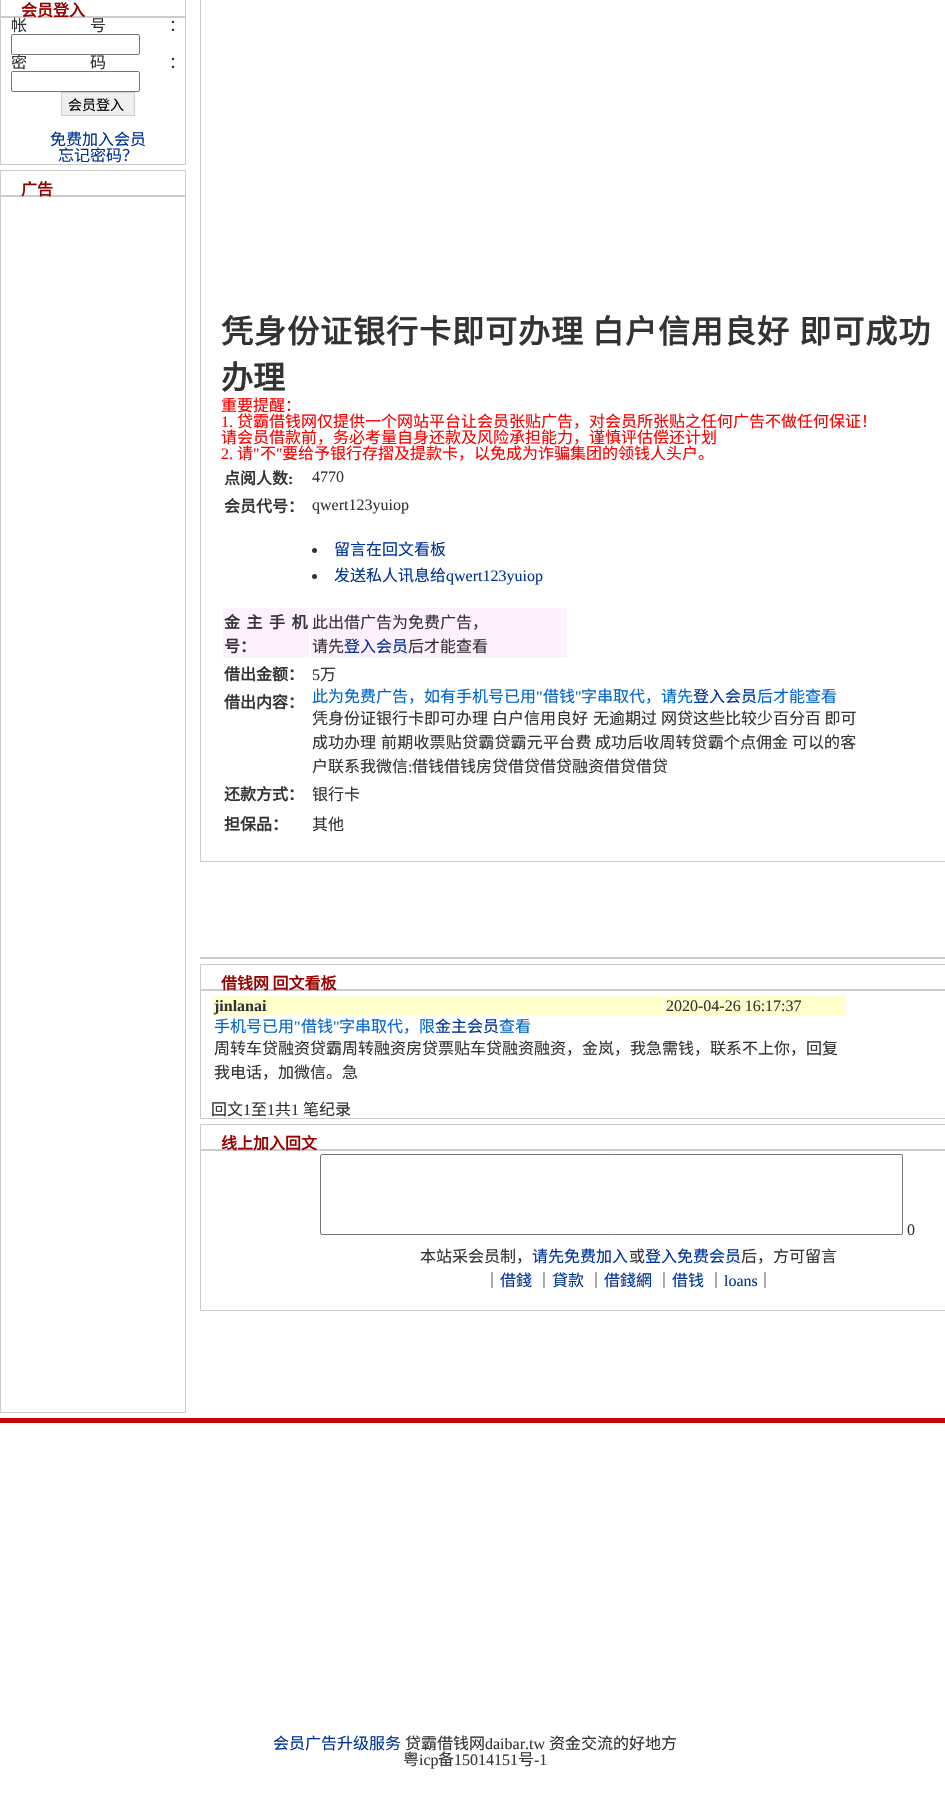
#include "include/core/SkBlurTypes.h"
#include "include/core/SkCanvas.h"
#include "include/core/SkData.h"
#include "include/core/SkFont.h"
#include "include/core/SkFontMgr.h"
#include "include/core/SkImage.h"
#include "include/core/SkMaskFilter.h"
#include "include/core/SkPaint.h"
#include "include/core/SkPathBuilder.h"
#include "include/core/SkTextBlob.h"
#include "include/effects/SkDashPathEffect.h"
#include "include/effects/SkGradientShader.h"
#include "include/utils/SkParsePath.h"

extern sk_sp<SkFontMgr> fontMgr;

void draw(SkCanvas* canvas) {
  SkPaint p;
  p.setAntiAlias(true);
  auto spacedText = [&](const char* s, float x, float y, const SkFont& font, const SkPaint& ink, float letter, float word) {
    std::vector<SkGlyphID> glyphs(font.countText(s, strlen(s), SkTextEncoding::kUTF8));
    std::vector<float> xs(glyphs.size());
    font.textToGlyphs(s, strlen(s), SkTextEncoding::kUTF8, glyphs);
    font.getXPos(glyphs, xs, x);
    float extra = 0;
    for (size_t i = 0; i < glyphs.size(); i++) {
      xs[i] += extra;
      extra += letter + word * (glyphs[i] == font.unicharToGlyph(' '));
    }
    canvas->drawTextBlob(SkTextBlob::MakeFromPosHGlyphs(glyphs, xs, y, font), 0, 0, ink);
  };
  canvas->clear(SK_ColorWHITE);
  p.setStyle(SkPaint::kStroke_Style);
  p.setStrokeWidth(1);
  p.setColor(SkColorSetRGB(204, 204, 204));
  canvas->drawRect(SkRect::MakeLTRB(0.5f, -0.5f, 185.5f, 16.5f), p);
  canvas->drawRect(SkRect::MakeLTRB(0.5f, 17.5f, 185.5f, 164.5f), p);
  p.setColor(SkColorSetRGB(118, 118, 118));
  canvas->drawRoundRect(SkRect::MakeLTRB(11.5f, 34.5f, 139.5f, 54.5f), 1.5f, 1.5f, p);
  canvas->drawRoundRect(SkRect::MakeLTRB(11.5f, 71.5f, 139.5f, 91.5f), 1.5f, 1.5f, p);
  p.setStyle(SkPaint::kFill_Style);
  p.setColor(SkColorSetRGB(239, 239, 239));
  canvas->drawRect(SkRect::MakeLTRB(61.5f, 92.5f, 134.5f, 115.5f), p);
  p.setStyle(SkPaint::kStroke_Style);
  p.setColor(SkColorSetRGB(200, 210, 205));
  canvas->drawRect(SkRect::MakeLTRB(61.5f, 92.5f, 134.5f, 115.5f), p);
  p.setColor(SkColorSetRGB(204, 204, 204));
  canvas->drawRect(SkRect::MakeLTRB(0.5f, 170.5f, 185.5f, 195.5f), p);
  canvas->drawRect(SkRect::MakeLTRB(0.5f, 196.5f, 185.5f, 1412.5f), p);
  canvas->drawRect(SkRect::MakeLTRB(200.5f, -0.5f, 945.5f, 861.5f), p);
  p.setStyle(SkPaint::kFill_Style);
  p.setColor(SkColorSetRGB(51, 51, 51));
  canvas->drawCircle(314.5f, 550.5f, 2.5f, p);
  canvas->drawCircle(314.5f, 576.5f, 2.5f, p);
  p.setColor(SkColorSetRGB(255, 240, 255));
  canvas->drawRect(SkRect::MakeLTRB(223, 608, 309, 658), p);
  canvas->drawRect(SkRect::MakeLTRB(311, 608, 567, 658), p);
  p.setColor(SkColorSetRGB(204, 204, 204));
  canvas->drawRect(SkRect::MakeLTRB(200, 957, 945, 959), p);
  p.setStyle(SkPaint::kStroke_Style);
  canvas->drawRect(SkRect::MakeLTRB(200.5f, 964.5f, 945.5f, 989.5f), p);
  canvas->drawRect(SkRect::MakeLTRB(200.5f, 990.5f, 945.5f, 1118.5f), p);
  p.setStyle(SkPaint::kFill_Style);
  p.setColor(SkColorSetRGB(255, 255, 204));
  canvas->drawRect(SkRect::MakeLTRB(213, 996, 663, 1016), p);
  canvas->drawRect(SkRect::MakeLTRB(665, 996, 846, 1016), p);
  p.setStyle(SkPaint::kStroke_Style);
  p.setColor(SkColorSetRGB(204, 204, 204));
  canvas->drawRect(SkRect::MakeLTRB(200.5f, 1124.5f, 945.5f, 1149.5f), p);
  canvas->drawRect(SkRect::MakeLTRB(200.5f, 1150.5f, 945.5f, 1310.5f), p);
  p.setColor(SkColorSetRGB(118, 118, 118));
  canvas->drawRoundRect(SkRect::MakeLTRB(320.5f, 1154.5f, 902.5f, 1234.5f), 1.5f, 1.5f, p);
  p.setStyle(SkPaint::kFill_Style);
  p.setColor(SkColorSetRGB(198, 10, 5));
  canvas->drawRect(SkRect::MakeLTRB(0, 1418, 945, 1423), p);
  SkFont font1(fontMgr->matchFamilyStyle("Noto Sans CJK SC", SkFontStyle::Bold()), 16);
  font1.setSubpixel(true);
  p.setColor(SkColorSetRGB(153, 0, 0));
  canvas->drawString("会员登入", 21, 16, font1, p);
  SkFont font2(fontMgr->matchFamilyStyle("Noto Sans CJK SC", SkFontStyle::Normal()), 16);
  font2.setSubpixel(true);
  p.setColor(SkColorSetRGB(51, 51, 51));
  spacedText("帐号：", 11, 31, font2, p, 63, 0);
  spacedText("密码：", 11, 68, font2, p, 63, 0);
  SkFont font3(fontMgr->matchFamilyStyle("Noto Sans CJK SC", SkFontStyle::Normal()), 14);
  font3.setSubpixel(true);
  p.setColor(SK_ColorBLACK);
  canvas->drawString("会员登入", 68, 110, font3, p);
  p.setColor(SkColorSetRGB(0, 51, 153));
  canvas->drawString("免费加入会员", 50, 145, font2, p);
  canvas->drawString("忘记密码？", 58, 161, font2, p);
  p.setColor(SkColorSetRGB(153, 0, 0));
  canvas->drawString("广告", 21, 195, font1, p);
  SkFont font4(fontMgr->matchFamilyStyle("Noto Sans CJK SC", SkFontStyle::Bold()), 32);
  font4.setSubpixel(true);
  p.setColor(SkColorSetRGB(51, 51, 51));
  spacedText("凭身份证银行卡即可办理", 221, 343, font4, p, 1, 0);
  spacedText("白户信用良好 即可成功", 592, 343, font4, p, 1, 1);
  canvas->drawString("办理", 221, 389, font4, p);
  p.setColor(SkColorSetRGB(255, 0, 0));
  canvas->drawString("重要提醒：", 221, 411, font2, p);
  SkFont font5(fontMgr->matchFamilyStyle("Liberation Serif", SkFontStyle::Normal()), 16);
  font5.setSubpixel(true);
  canvas->drawString("1.", 221, 427, font5, p);
  canvas->drawString("贷霸借钱网仅提供一个网站平台让会员张贴广告，对会员所张贴之任何广告不做任何保证！", 237, 427, font2, p);
  canvas->drawString("请会员借款前，务必考量自身还款及风险承担能力，谨慎评估偿还计划", 221, 443, font2, p);
  canvas->drawString("2.", 221, 459, font5, p);
  canvas->drawString("请", 237, 459, font2, p);
  canvas->drawString("\"", 253, 459, font5, p);
  canvas->drawString("不", 260, 459, font2, p);
  canvas->drawString("\"", 276, 459, font5, p);
  canvas->drawString("要给予银行存摺及提款卡，以免成为诈骗集团的领钱人头户。", 282, 459, font2, p);
  p.setColor(SkColorSetRGB(51, 51, 51));
  canvas->drawString("点阅人数", 224, 484, font1, p);
  SkFont font6(fontMgr->matchFamilyStyle("Liberation Serif", SkFontStyle::Bold()), 16);
  font6.setSubpixel(true);
  canvas->drawString(":", 288, 484, font6, p);
  canvas->drawString("4770", 312, 482, font5, p);
  canvas->drawString("会员代号：", 224, 512, font1, p);
  canvas->drawString("qwert123yuiop", 312, 510, font5, p);
  p.setColor(SkColorSetRGB(0, 51, 153));
  canvas->drawString("留言在回文看板", 334, 555, font2, p);
  canvas->drawString("发送私人讯息给", 334, 581, font2, p);
  canvas->drawString("qwert123yuiop", 446, 581, font5, p);
  p.setColor(SkColorSetRGB(51, 51, 51));
  spacedText("金主手机", 224, 628, font1, p, 6.5f, 0);
  canvas->drawString("号：", 224, 652, font1, p);
  canvas->drawString("此出借广告为免费广告，", 312, 628, font2, p);
  canvas->drawString("请先", 312, 652, font2, p);
  p.setColor(SkColorSetRGB(0, 51, 153));
  canvas->drawString("登入会员", 344, 652, font2, p);
  p.setColor(SkColorSetRGB(51, 51, 51));
  canvas->drawString("后才能查看", 408, 652, font2, p);
  canvas->drawString("借出金额：", 224, 680, font1, p);
  canvas->drawString("5", 312, 680, font5, p);
  canvas->drawString("万", 320, 680, font2, p);
  canvas->drawString("借出内容：", 224, 708, font1, p);
  p.setColor(SkColorSetRGB(0, 102, 204));
  canvas->drawString("此为免费广告，如有手机号已用", 312, 702, font2, p);
  canvas->drawString("\"", 536, 702, font5, p);
  canvas->drawString("借钱", 543, 702, font2, p);
  canvas->drawString("\"", 575, 702, font5, p);
  canvas->drawString("字串取代，请先", 581, 702, font2, p);
  p.setColor(SkColorSetRGB(0, 51, 153));
  canvas->drawString("登入会员", 693, 702, font2, p);
  p.setColor(SkColorSetRGB(0, 102, 204));
  canvas->drawString("后才能查看", 757, 702, font2, p);
  p.setColor(SkColorSetRGB(51, 51, 51));
  canvas->drawString("凭身份证银行卡即可办理", 312, 724, font2, p);
  canvas->drawString("白户信用良好", 492, 724, font2, p);
  canvas->drawString("无逾期过", 593, 724, font2, p);
  canvas->drawString("网贷这些比较少百分百 即可", 661, 724, font2, p);
  canvas->drawString("成功办理", 312, 748, font2, p);
  spacedText("前期收票贴贷霸贷霸元平台费", 381, 748, font2, p, 0.2f, 0);
  spacedText("成功后收周转贷霸个点佣金 可以的客", 595, 748, font2, p, 0.1f, 0);
  canvas->drawString("户联系我微信", 312, 772, font2, p);
  canvas->drawString(":", 408, 772, font5, p);
  canvas->drawString("借钱借钱房贷借贷借贷融资借贷借贷", 412, 772, font2, p);
  canvas->drawString("还款方式：", 224, 800, font1, p);
  canvas->drawString("银行卡", 312, 800, font2, p);
  canvas->drawString("担保品：", 224, 830, font1, p);
  canvas->drawString("其他", 312, 830, font2, p);
  p.setColor(SkColorSetRGB(153, 0, 0));
  canvas->drawString("借钱网 回文看板", 221, 989, font1, p);
  p.setColor(SkColorSetRGB(51, 51, 51));
  canvas->drawString("jinlanai", 214, 1011, font6, p);
  canvas->drawString("2020-04-26 16:17:37", 666, 1011, font5, p);
  p.setColor(SkColorSetRGB(0, 102, 204));
  canvas->drawString("手机号已用", 214, 1032, font2, p);
  canvas->drawString("\"", 294, 1032, font5, p);
  canvas->drawString("借钱", 301, 1032, font2, p);
  canvas->drawString("\"", 333, 1032, font5, p);
  canvas->drawString("字串取代，限", 339, 1032, font2, p);
  p.setColor(SkColorSetRGB(0, 51, 153));
  canvas->drawString("金主会员", 435, 1032, font2, p);
  p.setColor(SkColorSetRGB(0, 102, 204));
  canvas->drawString("查看", 499, 1032, font2, p);
  p.setColor(SkColorSetRGB(51, 51, 51));
  canvas->drawString("周转车贷融资贷霸周转融资房贷票贴车贷融资融资，金岚，我急需钱，联系不上你，回复", 214, 1054, font2, p);
  canvas->drawString("我电话，加微信。急", 214, 1078, font2, p);
  canvas->drawString("回文", 211, 1115, font2, p);
  canvas->drawString("1", 243, 1115, font5, p);
  canvas->drawString("至", 251, 1115, font2, p);
  canvas->drawString("1", 267, 1115, font5, p);
  canvas->drawString("共", 275, 1115, font2, p);
  canvas->drawString("1", 291, 1115, font5, p);
  canvas->drawString("笔纪录", 303, 1115, font2, p);
  p.setColor(SkColorSetRGB(153, 0, 0));
  canvas->drawString("线上加入回文", 221, 1149, font1, p);
  p.setColor(SkColorSetRGB(51, 51, 51));
  canvas->drawString("0", 907, 1235, font5, p);
  canvas->drawString("本站采会员制，", 420, 1262, font2, p);
  p.setColor(SkColorSetRGB(0, 51, 153));
  canvas->drawString("请先免费加入", 532, 1262, font2, p);
  p.setColor(SkColorSetRGB(51, 51, 51));
  canvas->drawString("或", 629, 1262, font2, p);
  p.setColor(SkColorSetRGB(0, 51, 153));
  canvas->drawString("登入免费会员", 645, 1262, font2, p);
  p.setColor(SkColorSetRGB(51, 51, 51));
  canvas->drawString("后，方可留言", 741, 1262, font2, p);
  canvas->drawString("｜", 484, 1286, font2, p);
  p.setColor(SkColorSetRGB(0, 51, 153));
  canvas->drawString("借錢", 500, 1286, font2, p);
  p.setColor(SkColorSetRGB(51, 51, 51));
  canvas->drawString("｜", 536, 1286, font2, p);
  p.setColor(SkColorSetRGB(0, 51, 153));
  canvas->drawString("貸款", 552, 1286, font2, p);
  p.setColor(SkColorSetRGB(51, 51, 51));
  canvas->drawString("｜", 588, 1286, font2, p);
  p.setColor(SkColorSetRGB(0, 51, 153));
  canvas->drawString("借錢網", 604, 1286, font2, p);
  p.setColor(SkColorSetRGB(51, 51, 51));
  canvas->drawString("｜", 656, 1286, font2, p);
  p.setColor(SkColorSetRGB(0, 51, 153));
  canvas->drawString("借钱", 672, 1286, font2, p);
  p.setColor(SkColorSetRGB(51, 51, 51));
  canvas->drawString("｜", 708, 1286, font2, p);
  p.setColor(SkColorSetRGB(0, 51, 153));
  canvas->drawString("loans", 724, 1286, font5, p);
  p.setColor(SkColorSetRGB(51, 51, 51));
  canvas->drawString("｜", 757, 1286, font2, p);
  p.setColor(SkColorSetRGB(0, 51, 153));
  canvas->drawString("会员广告升级服务", 273, 1749, font2, p);
  p.setColor(SkColorSetRGB(51, 51, 51));
  canvas->drawString("贷霸借钱网", 405, 1749, font2, p);
  canvas->drawString("daibar.tw", 485, 1749, font5, p);
  canvas->drawString("资金交流的好地方", 549, 1749, font2, p);
  canvas->drawString("粤", 403, 1765, font2, p);
  canvas->drawString("icp", 419, 1765, font5, p);
  canvas->drawString("备", 438, 1765, font2, p);
  canvas->drawString("15014151", 454, 1765, font5, p);
  canvas->drawString("号", 518, 1765, font2, p);
  canvas->drawString("-1", 534, 1765, font5, p);
}
